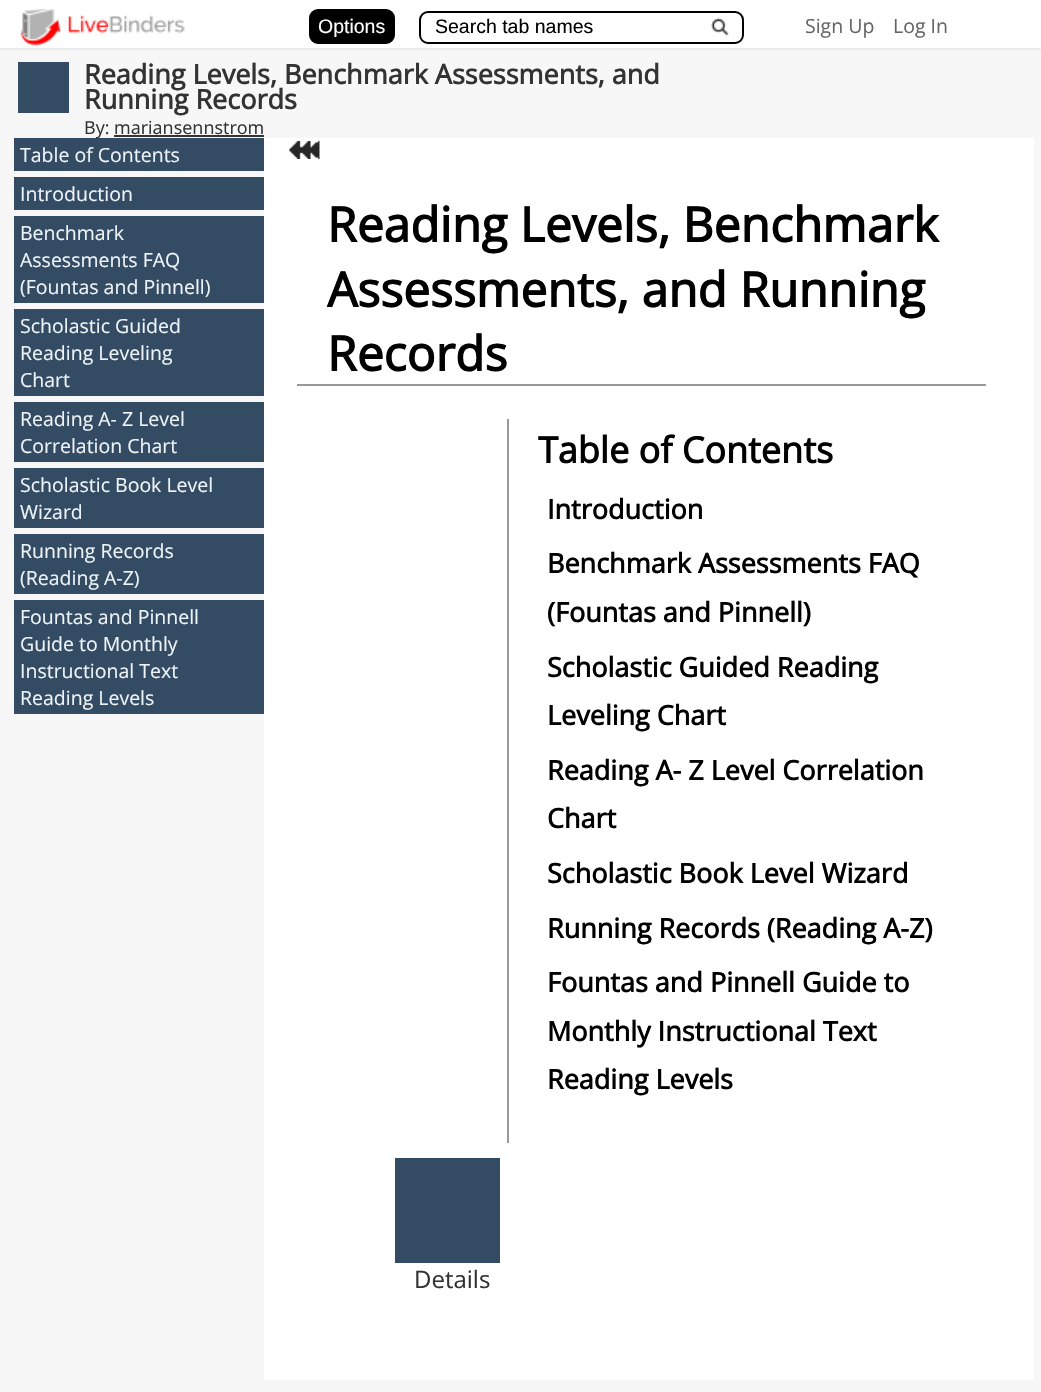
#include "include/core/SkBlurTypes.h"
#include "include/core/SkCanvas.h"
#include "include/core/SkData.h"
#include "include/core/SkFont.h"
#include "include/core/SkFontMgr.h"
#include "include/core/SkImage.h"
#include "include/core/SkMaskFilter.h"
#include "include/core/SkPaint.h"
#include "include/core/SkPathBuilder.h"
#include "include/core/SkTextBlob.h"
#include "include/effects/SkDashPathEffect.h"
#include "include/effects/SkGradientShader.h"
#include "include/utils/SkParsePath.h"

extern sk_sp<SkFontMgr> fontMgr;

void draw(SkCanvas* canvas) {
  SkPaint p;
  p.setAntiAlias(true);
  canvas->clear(SkColorSetRGB(247, 247, 247));
  p.setColor(SK_ColorWHITE);
  canvas->drawRect(SkRect::MakeLTRB(0, 0, 1041, 48), p);
  p.setColor(SkColorSetRGB(235, 235, 235));
  canvas->drawRect(SkRect::MakeLTRB(0, 48, 1041, 50), p);
  canvas->drawImageRect(SkImages::DeferredFromEncodedData(SkData::MakeFromFileName("images/1.png")), SkRect::MakeLTRB(20, 9, 185, 46), SkSamplingOptions());
  p.setColor(SK_ColorBLACK);
  canvas->drawRoundRect(SkRect::MakeLTRB(310, 10, 394, 43), 8, 8, p);
  p.setStyle(SkPaint::kStroke_Style);
  p.setStrokeWidth(2);
  canvas->drawRoundRect(SkRect::MakeLTRB(310, 10, 394, 43), 8, 8, p);
  canvas->drawImageRect(SkImages::DeferredFromEncodedData(SkData::MakeFromFileName("images/2.png")), SkRect::MakeLTRB(710, 17, 729, 37), SkSamplingOptions());
  canvas->drawRoundRect(SkRect::MakeLTRB(420, 12, 743, 43), 8, 8, p);
  p.setStyle(SkPaint::kFill_Style);
  p.setColor(SkColorSetRGB(51, 75, 99));
  canvas->drawRect(SkRect::MakeLTRB(18, 62, 69, 113), p);
  p.setColor(SkColorSetRGB(51, 51, 51));
  canvas->drawRect(SkRect::MakeLTRB(114, 135, 264, 137), p);
  p.setColor(SkColorSetRGB(51, 75, 99));
  canvas->drawRect(SkRect::MakeLTRB(14, 177, 264, 210), p);
  canvas->drawRect(SkRect::MakeLTRB(14, 216, 264, 303), p);
  canvas->drawRect(SkRect::MakeLTRB(14, 309, 264, 396), p);
  canvas->drawRect(SkRect::MakeLTRB(14, 402, 264, 462), p);
  canvas->drawRect(SkRect::MakeLTRB(14, 468, 264, 528), p);
  canvas->drawRect(SkRect::MakeLTRB(14, 534, 264, 594), p);
  canvas->drawRect(SkRect::MakeLTRB(14, 600, 264, 714), p);
  p.setColor(SK_ColorWHITE);
  canvas->drawRect(SkRect::MakeLTRB(264, 138, 1034, 1380), p);
  canvas->drawImageRect(SkImages::DeferredFromEncodedData(SkData::MakeFromFileName("images/3.png")), SkRect::MakeLTRB(289, 141, 320, 159), SkSamplingOptions());
  p.setColor(SkColorSetRGB(153, 153, 153));
  canvas->drawRect(SkRect::MakeLTRB(297, 384, 986, 386), p);
  canvas->drawRect(SkRect::MakeLTRB(507, 419, 509, 1143), p);
  p.setColor(SkColorSetRGB(51, 75, 99));
  canvas->drawRect(SkRect::MakeLTRB(395, 1158, 500, 1263), p);
  SkFont font1(fontMgr->matchFamilyStyle("Liberation Sans", SkFontStyle::Normal()), 19.5f);
  font1.setSubpixel(true);
  p.setColor(SK_ColorWHITE);
  canvas->drawString("Options", 318, 33, font1, p);
  p.setColor(SK_ColorBLACK);
  canvas->drawString("Search tab names", 435, 33, font1, p);
  SkFont font2(fontMgr->matchFamilyStyle("Open Sans", SkFontStyle::Normal()), 19.5f);
  font2.setSubpixel(true);
  p.setColor(SkColorSetRGB(102, 102, 102));
  canvas->drawString("Sign Up", 805, 33, font2, p);
  canvas->drawString("Log In", 893, 33, font2, p);
  SkFont font3(fontMgr->matchFamilyStyle("Open Sans", SkFontStyle::Bold()), 27);
  font3.setSubpixel(true);
  p.setColor(SkColorSetRGB(51, 51, 51));
  canvas->drawString("Reading Levels, Benchmark Assessments, and", 84, 84, font3, p);
  canvas->drawString("Running Records", 84, 109, font3, p);
  SkFont font4(fontMgr->matchFamilyStyle("Open Sans", SkFontStyle::Normal()), 18);
  font4.setSubpixel(true);
  canvas->drawString("By: mariansennstrom", 84, 134, font4, p);
  p.setColor(SkColorSetRGB(51, 75, 99));
  canvas->drawRect(SkRect::MakeLTRB(14, 138, 264, 171), p);
  p.setColor(SkColorSetRGB(238, 243, 247));
  canvas->drawString("Table of Contents", 20, 162, font2, p);
  canvas->drawString("Introduction", 20, 201, font2, p);
  canvas->drawString("Benchmark", 20, 240, font2, p);
  canvas->drawString("Assessments FAQ", 20, 267, font2, p);
  canvas->drawString("(Fountas and Pinnell)", 20, 294, font2, p);
  canvas->drawString("Scholastic Guided", 20, 333, font2, p);
  canvas->drawString("Reading Leveling", 20, 360, font2, p);
  canvas->drawString("Chart", 20, 387, font2, p);
  canvas->drawString("Reading A- Z Level", 20, 426, font2, p);
  canvas->drawString("Correlation Chart", 20, 453, font2, p);
  canvas->drawString("Scholastic Book Level", 20, 492, font2, p);
  canvas->drawString("Wizard", 20, 519, font2, p);
  canvas->drawString("Running Records", 20, 558, font2, p);
  canvas->drawString("(Reading A-Z)", 20, 585, font2, p);
  canvas->drawString("Fountas and Pinnell", 20, 624, font2, p);
  canvas->drawString("Guide to Monthly", 20, 651, font2, p);
  canvas->drawString("Instructional Text", 20, 678, font2, p);
  canvas->drawString("Reading Levels", 20, 705, font2, p);
  SkFont font5(fontMgr->matchFamilyStyle("Open Sans", SkFontStyle::Bold()), 48);
  font5.setSubpixel(true);
  p.setColor(SK_ColorBLACK);
  canvas->drawString("Reading Levels, Benchmark", 327, 242, font5, p);
  canvas->drawString("Assessments, and Running", 327, 307, font5, p);
  canvas->drawString("Records", 327, 371, font5, p);
  SkFont font6(fontMgr->matchFamilyStyle("Open Sans", SkFontStyle::Bold()), 36);
  font6.setSubpixel(true);
  canvas->drawString("Table of Contents", 538, 463, font6, p);
  canvas->drawString("Introduction", 547, 519, font3, p);
  canvas->drawString("Benchmark Assessments FAQ", 547, 573, font3, p);
  canvas->drawString("(Fountas and Pinnell)", 547, 622, font3, p);
  canvas->drawString("Scholastic Guided Reading", 547, 677, font3, p);
  canvas->drawString("Leveling Chart", 547, 725, font3, p);
  canvas->drawString("Reading A- Z Level Correlation", 547, 780, font3, p);
  canvas->drawString("Chart", 547, 828, font3, p);
  canvas->drawString("Scholastic Book Level Wizard", 547, 883, font3, p);
  canvas->drawString("Running Records (Reading A-Z)", 547, 938, font3, p);
  canvas->drawString("Fountas and Pinnell Guide to", 547, 992, font3, p);
  canvas->drawString("Monthly Instructional Text", 547, 1041, font3, p);
  canvas->drawString("Reading Levels", 547, 1089, font3, p);
  SkFont font7(fontMgr->matchFamilyStyle("Open Sans", SkFontStyle::Normal()), 24);
  font7.setSubpixel(true);
  p.setColor(SkColorSetRGB(51, 51, 51));
  canvas->drawString("Details", 414, 1288, font7, p);
}
